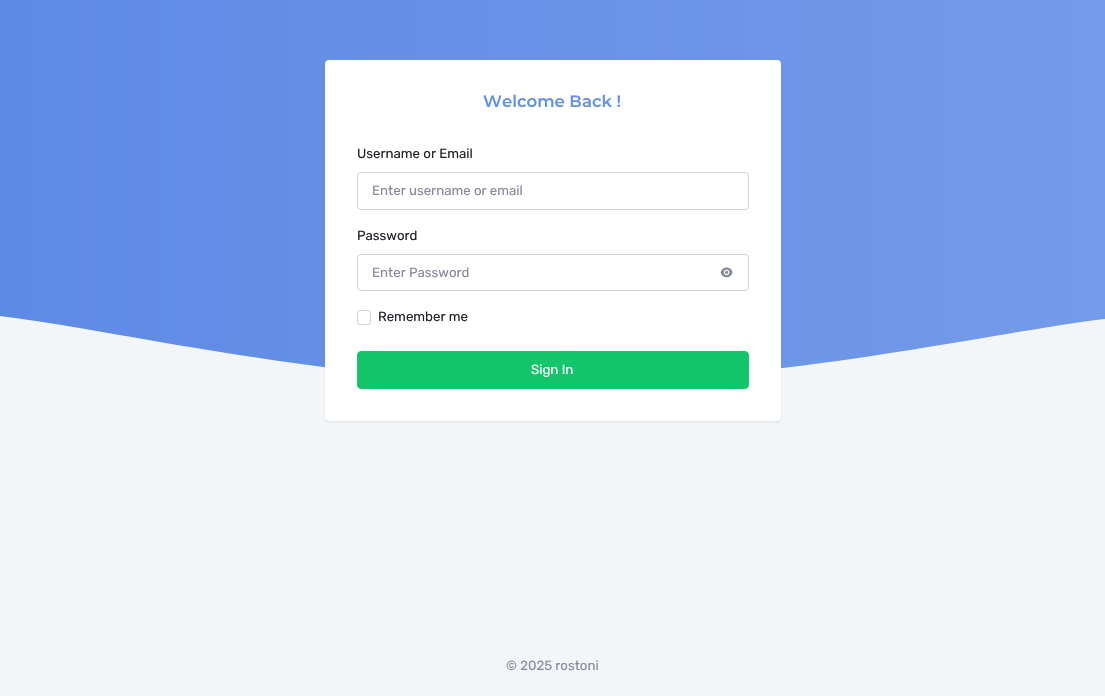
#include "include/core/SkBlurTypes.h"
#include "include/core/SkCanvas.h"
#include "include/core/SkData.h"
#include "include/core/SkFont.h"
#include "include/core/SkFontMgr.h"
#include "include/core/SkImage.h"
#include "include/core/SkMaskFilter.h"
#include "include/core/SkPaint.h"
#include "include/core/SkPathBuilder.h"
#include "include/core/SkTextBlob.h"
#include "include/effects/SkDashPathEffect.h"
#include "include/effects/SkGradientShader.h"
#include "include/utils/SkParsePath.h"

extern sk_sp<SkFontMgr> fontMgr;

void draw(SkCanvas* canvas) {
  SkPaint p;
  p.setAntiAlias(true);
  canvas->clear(SkColorSetRGB(243, 246, 249));
  {
    const SkColor colors[] = {SkColorSetRGB(93, 138, 229), SkColorSetRGB(116, 155, 233)};
    const float stops[] = {0, 1};
    const SkPoint ends[] = {{0, 190}, {1105, 190}};
    p.setShader(SkGradientShader::MakeLinear(ends, colors, stops, 2, SkTileMode::kClamp));
    p.setAlpha(255);
  }
  canvas->drawRect(SkRect::MakeLTRB(0, 0, 1105, 369), p);
  canvas->save();
  canvas->clipRect(SkRect::MakeLTRB(0, 288, 1105, 380));
  p.setShader(nullptr);
  p.setColor(SkColorSetRGB(243, 246, 249));
  canvas->drawPath(SkPathBuilder().moveTo(0, 316).cubicTo(111, 329, 332, 383, 552, 383).cubicTo(773, 384, 994, 332, 1105, 319).lineTo(1105, 395).lineTo(0, 395).close().detach(), p);
  canvas->restore();
  p.setColor(SkColorSetARGB(38, 56, 65, 74));
  p.setMaskFilter(SkMaskFilter::MakeBlur(kNormal_SkBlurStyle, 1));
  canvas->drawRoundRect(SkRect::MakeLTRB(325, 61, 781, 422), 4, 4, p);
  p.setMaskFilter(nullptr);
  p.setColor(SK_ColorWHITE);
  canvas->drawRoundRect(SkRect::MakeLTRB(325, 60, 781, 421), 4, 4, p);
  p.setStyle(SkPaint::kStroke_Style);
  p.setStrokeWidth(1);
  p.setColor(SkColorSetRGB(206, 212, 218));
  canvas->drawRoundRect(SkRect::MakeLTRB(357.5f, 172.5f, 748.5f, 209.5f), 3.5f, 3.5f, p);
  canvas->drawRoundRect(SkRect::MakeLTRB(357.5f, 254.5f, 748.5f, 290.5f), 3.5f, 3.5f, p);
  canvas->drawImageRect(SkImages::DeferredFromEncodedData(SkData::MakeFromFileName("images/1.png")), SkRect::MakeLTRB(720, 267, 733, 278), SkSamplingOptions());
  canvas->drawRoundRect(SkRect::MakeLTRB(357.5f, 310.5f, 370.5f, 324.5f), 2.5f, 2.5f, p);
  p.setStyle(SkPaint::kFill_Style);
  p.setColor(SkColorSetRGB(19, 197, 107));
  canvas->drawRoundRect(SkRect::MakeLTRB(357.5f, 351.5f, 748.5f, 388.5f), 3.5f, 3.5f, p);
  p.setStyle(SkPaint::kStroke_Style);
  canvas->drawRoundRect(SkRect::MakeLTRB(357.5f, 351.5f, 748.5f, 388.5f), 3.5f, 3.5f, p);
  SkFont font1(fontMgr->matchFamilyStyle("Montserrat", SkFontStyle(600, SkFontStyle::kNormal_Width, SkFontStyle::kUpright_Slant)), 16.5f);
  font1.setSubpixel(true);
  p.setStyle(SkPaint::kFill_Style);
  p.setColor(SkColorSetRGB(102, 145, 231));
  canvas->drawString("Welcome Back !", 483, 107, font1, p);
  SkFont font2(fontMgr->matchFamilyStyle("Rubik", SkFontStyle::Normal()), 13.25f);
  font2.setSubpixel(true);
  p.setColor(SkColorSetRGB(33, 37, 41));
  canvas->drawString("Username or Email", 357, 158, font2, p);
  p.setColor(SkColorSetRGB(135, 138, 153));
  canvas->drawString("Enter username or email", 372, 195, font2, p);
  p.setColor(SkColorSetRGB(33, 37, 41));
  canvas->drawString("Password", 357, 240, font2, p);
  p.setColor(SkColorSetRGB(135, 138, 153));
  canvas->drawString("Enter Password", 372, 277, font2, p);
  p.setColor(SkColorSetRGB(33, 37, 41));
  canvas->drawString("Remember me", 378, 321, font2, p);
  p.setColor(SK_ColorWHITE);
  canvas->drawString("Sign In", 531, 374, font2, p);
  p.setColor(SkColorSetRGB(135, 138, 153));
  canvas->drawString("© 2025 rostoni", 506, 670, font2, p);
}
